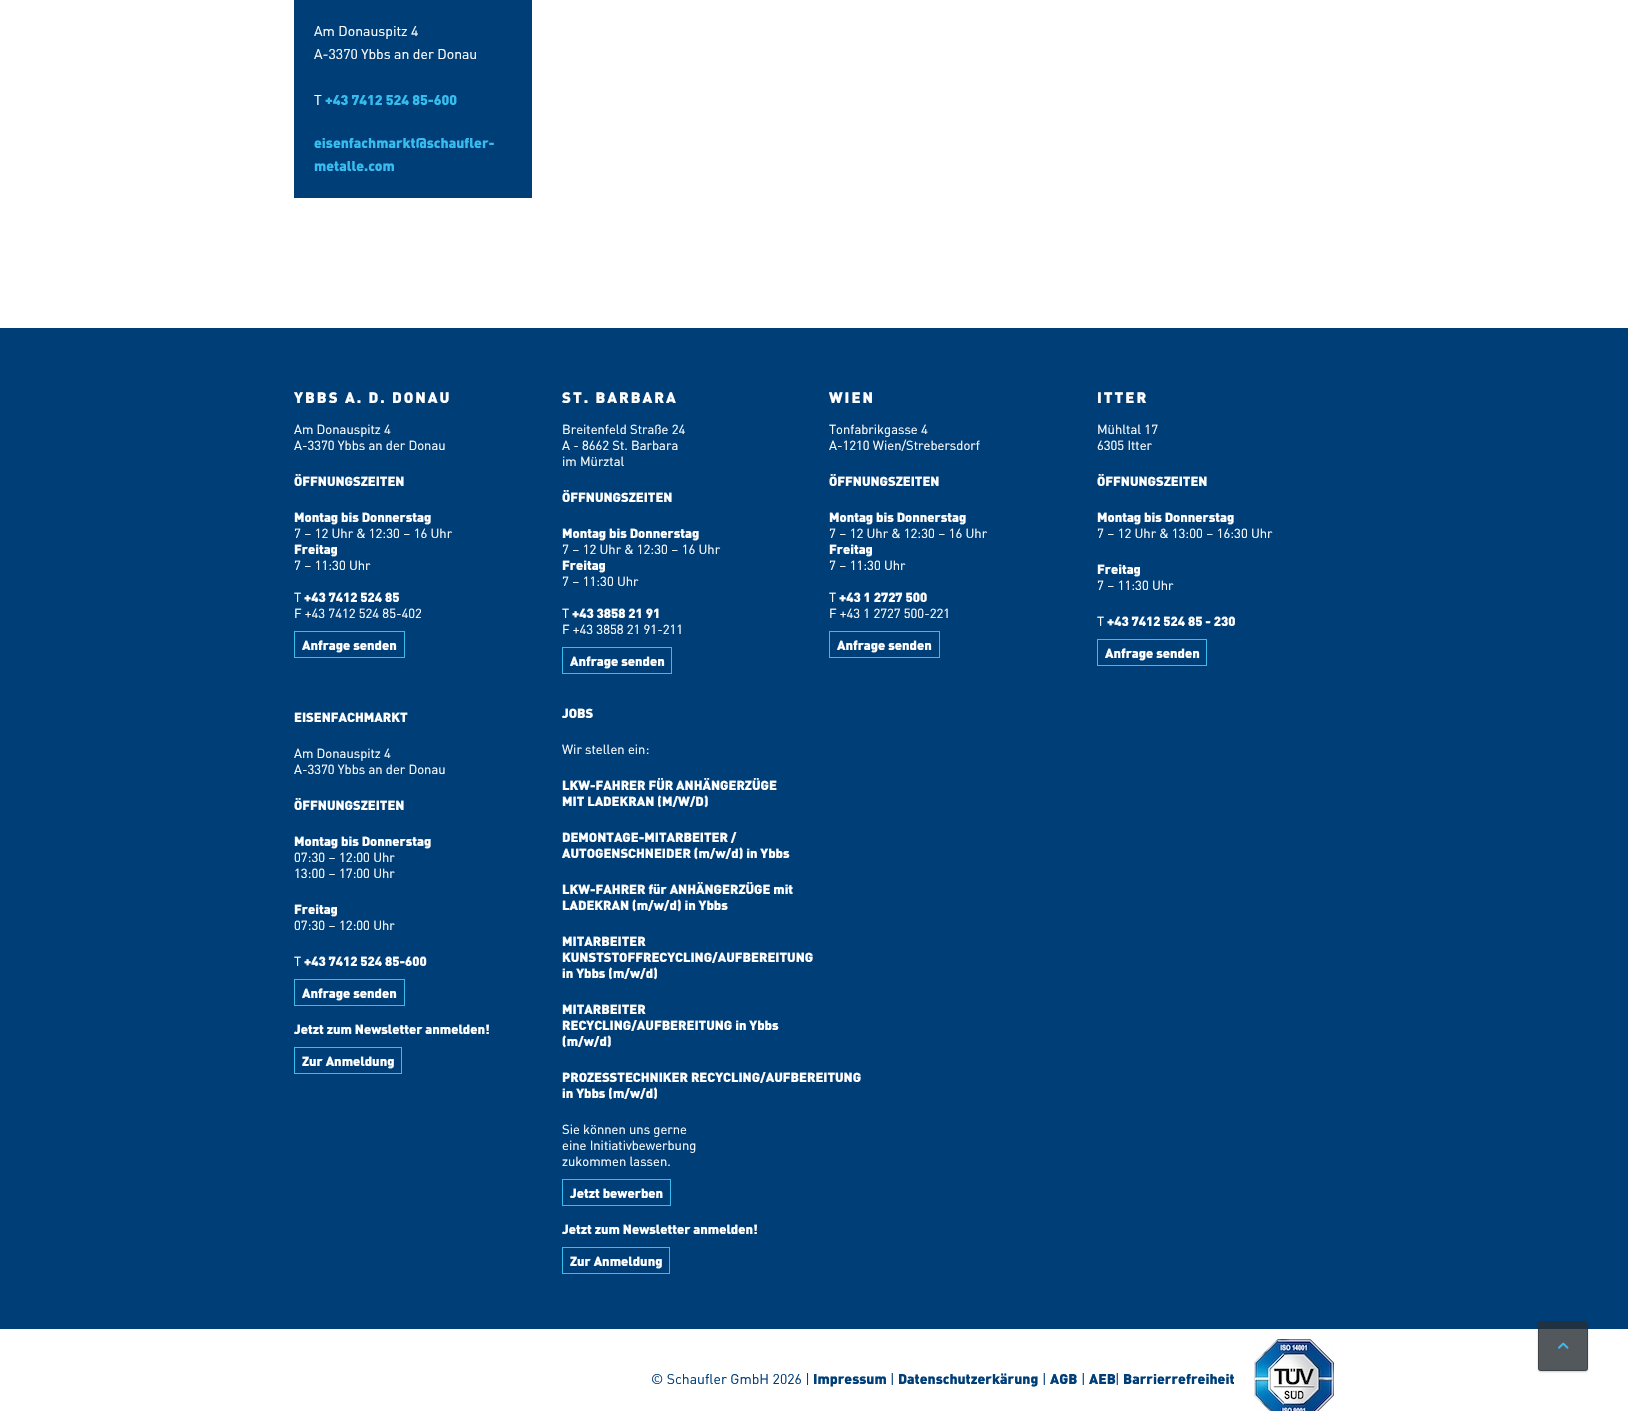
#include "include/core/SkBlurTypes.h"
#include "include/core/SkCanvas.h"
#include "include/core/SkData.h"
#include "include/core/SkFont.h"
#include "include/core/SkFontMgr.h"
#include "include/core/SkImage.h"
#include "include/core/SkMaskFilter.h"
#include "include/core/SkPaint.h"
#include "include/core/SkPathBuilder.h"
#include "include/core/SkTextBlob.h"
#include "include/effects/SkDashPathEffect.h"
#include "include/effects/SkGradientShader.h"
#include "include/utils/SkParsePath.h"

extern sk_sp<SkFontMgr> fontMgr;

void draw(SkCanvas* canvas) {
  SkPaint p;
  p.setAntiAlias(true);
  auto spacedText = [&](const char* s, float x, float y, const SkFont& font, const SkPaint& ink, float letter, float word) {
    std::vector<SkGlyphID> glyphs(font.countText(s, strlen(s), SkTextEncoding::kUTF8));
    std::vector<float> xs(glyphs.size());
    font.textToGlyphs(s, strlen(s), SkTextEncoding::kUTF8, glyphs);
    font.getXPos(glyphs, xs, x);
    float extra = 0;
    for (size_t i = 0; i < glyphs.size(); i++) {
      xs[i] += extra;
      extra += letter + word * (glyphs[i] == font.unicharToGlyph(' '));
    }
    canvas->drawTextBlob(SkTextBlob::MakeFromPosHGlyphs(glyphs, xs, y, font), 0, 0, ink);
  };
  canvas->clear(SK_ColorWHITE);
  p.setColor(SkColorSetRGB(0, 62, 120));
  canvas->drawRect(SkRect::MakeLTRB(294, 0, 532, 198), p);
  canvas->drawRect(SkRect::MakeLTRB(0, 328, 1628, 1329), p);
  p.setStyle(SkPaint::kStroke_Style);
  p.setStrokeWidth(1);
  p.setColor(SkColorSetRGB(54, 188, 238));
  canvas->drawRect(SkRect::MakeLTRB(294.5f, 631.5f, 404.5f, 657.5f), p);
  canvas->drawRect(SkRect::MakeLTRB(294.5f, 979.5f, 404.5f, 1005.5f), p);
  canvas->drawRect(SkRect::MakeLTRB(294.5f, 1047.5f, 401.5f, 1073.5f), p);
  canvas->drawRect(SkRect::MakeLTRB(562.5f, 647.5f, 671.5f, 673.5f), p);
  canvas->drawRect(SkRect::MakeLTRB(562.5f, 1179.5f, 670.5f, 1205.5f), p);
  canvas->drawRect(SkRect::MakeLTRB(562.5f, 1247.5f, 669.5f, 1273.5f), p);
  canvas->drawRect(SkRect::MakeLTRB(829.5f, 631.5f, 939.5f, 657.5f), p);
  canvas->drawRect(SkRect::MakeLTRB(1097.5f, 639.5f, 1206.5f, 665.5f), p);
  canvas->save();
  canvas->clipPath(SkPathBuilder(SkPathFillType::kEvenOdd).moveTo(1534, 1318).lineTo(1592, 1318).lineTo(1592, 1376).lineTo(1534, 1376).close().moveTo(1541, 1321).lineTo(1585, 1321).cubicTo(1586.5f, 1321, 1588, 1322.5f, 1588, 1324).lineTo(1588, 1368).cubicTo(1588, 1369.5f, 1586.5f, 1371, 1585, 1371).lineTo(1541, 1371).cubicTo(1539.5f, 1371, 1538, 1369.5f, 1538, 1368).lineTo(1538, 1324).cubicTo(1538, 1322.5f, 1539.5f, 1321, 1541, 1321).close().detach(), true);
  p.setStyle(SkPaint::kFill_Style);
  p.setColor(SkColorSetARGB(51, 0, 0, 0));
  p.setMaskFilter(SkMaskFilter::MakeBlur(kNormal_SkBlurStyle, 1));
  canvas->drawRoundRect(SkRect::MakeLTRB(1538, 1322, 1588, 1372), 3, 3, p);
  p.setMaskFilter(nullptr);
  canvas->restore();
  p.setColor(SkColorSetARGB(204, 40, 46, 53));
  canvas->drawRoundRect(SkRect::MakeLTRB(1538, 1321, 1588, 1371), 3, 3, p);
  p.setStyle(SkPaint::kStroke_Style);
  p.setColor(SkColorSetARGB(128, 40, 46, 53));
  canvas->drawRoundRect(SkRect::MakeLTRB(1538.5f, 1321.5f, 1587.5f, 1370.5f), 2.5f, 2.5f, p);
  canvas->drawImageRect(SkImages::DeferredFromEncodedData(SkData::MakeFromFileName("images/1.png")), SkRect::MakeLTRB(1558, 1342, 1569, 1349), SkSamplingOptions());
  canvas->drawImageRect(SkImages::DeferredFromEncodedData(SkData::MakeFromFileName("images/2.png")), SkRect::MakeLTRB(1254, 1339, 1334, 1411), SkSamplingOptions());
  SkFont font1(fontMgr->matchFamilyStyle("DIN", SkFontStyle::Normal()), 14);
  font1.setSubpixel(true);
  p.setStyle(SkPaint::kFill_Style);
  p.setColor(SK_ColorWHITE);
  canvas->drawString("Am Donauspitz 4", 314, 36, font1, p);
  canvas->drawString("A-3370 Ybbs an der Donau", 314, 59, font1, p);
  canvas->drawString("T", 314, 105, font1, p);
  SkFont font2(fontMgr->matchFamilyStyle("DIN", SkFontStyle(900, SkFontStyle::kNormal_Width, SkFontStyle::kUpright_Slant)), 14);
  font2.setSubpixel(true);
  p.setColor(SkColorSetRGB(54, 188, 238));
  canvas->drawString("+43 7412 524 85-600", 325, 105, font2, p);
  canvas->drawString("eisenfachmarkt@schaufler-", 314, 148, font2, p);
  canvas->drawString("metalle.com", 314, 171, font2, p);
  SkFont font3(fontMgr->matchFamilyStyle("DIN", SkFontStyle(900, SkFontStyle::kNormal_Width, SkFontStyle::kUpright_Slant)), 15);
  font3.setSubpixel(true);
  p.setColor(SK_ColorWHITE);
  spacedText("YBBS A. D. DONAU", 294, 403, font3, p, 2, 0);
  SkFont font4(fontMgr->matchFamilyStyle("DIN", SkFontStyle::Normal()), 13);
  font4.setSubpixel(true);
  canvas->drawString("Am Donauspitz 4", 294, 434, font4, p);
  canvas->drawString("A-3370 Ybbs an der Donau", 294, 450, font4, p);
  SkFont font5(fontMgr->matchFamilyStyle("DIN", SkFontStyle(900, SkFontStyle::kNormal_Width, SkFontStyle::kUpright_Slant)), 13);
  font5.setSubpixel(true);
  canvas->drawString("ÖFFNUNGSZEITEN", 294, 486, font5, p);
  canvas->drawString("Montag bis Donnerstag", 294, 522, font5, p);
  canvas->drawString("7 – 12 Uhr & 12:30 – 16 Uhr", 294, 538, font4, p);
  canvas->drawString("Freitag", 294, 554, font5, p);
  canvas->drawString("7 – 11:30 Uhr", 294, 570, font4, p);
  canvas->drawString("T", 294, 602, font4, p);
  canvas->drawString("+43 7412 524 85", 304, 602, font5, p);
  canvas->drawString("F +43 7412 524 85-402", 294, 618, font4, p);
  canvas->drawString("Anfrage senden", 302, 650, font5, p);
  canvas->drawString("EISENFACHMARKT", 294, 722, font5, p);
  canvas->drawString("Am Donauspitz 4", 294, 758, font4, p);
  canvas->drawString("A-3370 Ybbs an der Donau", 294, 774, font4, p);
  canvas->drawString("ÖFFNUNGSZEITEN", 294, 810, font5, p);
  canvas->drawString("Montag bis Donnerstag", 294, 846, font5, p);
  canvas->drawString("07:30 – 12:00 Uhr", 294, 862, font4, p);
  canvas->drawString("13:00 – 17:00 Uhr", 294, 878, font4, p);
  canvas->drawString("Freitag", 294, 914, font5, p);
  canvas->drawString("07:30 – 12:00 Uhr", 294, 930, font4, p);
  canvas->drawString("T", 294, 966, font4, p);
  canvas->drawString("+43 7412 524 85-600", 304, 966, font5, p);
  canvas->drawString("Anfrage senden", 302, 998, font5, p);
  canvas->drawString("Jetzt zum Newsletter anmelden!", 294, 1034, font5, p);
  canvas->drawString("Zur Anmeldung", 302, 1066, font5, p);
  spacedText("ST. BARBARA", 562, 403, font3, p, 2, 0);
  canvas->drawString("Breitenfeld Straße 24", 562, 434, font4, p);
  canvas->drawString("A - 8662 St. Barbara", 562, 450, font4, p);
  canvas->drawString("im Mürztal", 562, 466, font4, p);
  canvas->drawString("ÖFFNUNGSZEITEN", 562, 502, font5, p);
  canvas->drawString("Montag bis Donnerstag", 562, 538, font5, p);
  canvas->drawString("7 – 12 Uhr & 12:30 – 16 Uhr", 562, 554, font4, p);
  canvas->drawString("Freitag", 562, 570, font5, p);
  canvas->drawString("7 – 11:30 Uhr", 562, 586, font4, p);
  canvas->drawString("T", 562, 618, font4, p);
  canvas->drawString("+43 3858 21 91", 572, 618, font5, p);
  canvas->drawString("F +43 3858 21 91-211", 562, 634, font4, p);
  canvas->drawString("Anfrage senden", 570, 666, font5, p);
  canvas->drawString("JOBS", 562, 718, font5, p);
  canvas->drawString("Wir stellen ein:", 562, 754, font4, p);
  canvas->drawString("LKW-FAHRER FÜR ANHÄNGERZÜGE", 562, 790, font5, p);
  canvas->drawString("MIT LADEKRAN (M/W/D)", 562, 806, font5, p);
  canvas->drawString("DEMONTAGE-MITARBEITER /", 562, 842, font5, p);
  canvas->drawString("AUTOGENSCHNEIDER (m/w/d) in Ybbs", 562, 858, font5, p);
  canvas->drawString("LKW-FAHRER für ANHÄNGERZÜGE mit", 562, 894, font5, p);
  canvas->drawString("LADEKRAN (m/w/d) in Ybbs", 562, 910, font5, p);
  canvas->drawString("MITARBEITER", 562, 946, font5, p);
  canvas->drawString("KUNSTSTOFFRECYCLING/AUFBEREITUNG", 562, 962, font5, p);
  canvas->drawString("in Ybbs (m/w/d)", 562, 978, font5, p);
  canvas->drawString("MITARBEITER", 562, 1014, font5, p);
  canvas->drawString("RECYCLING/AUFBEREITUNG in Ybbs", 562, 1030, font5, p);
  canvas->drawString("(m/w/d)", 562, 1046, font5, p);
  canvas->drawString("PROZESSTECHNIKER RECYCLING/AUFBEREITUNG", 562, 1082, font5, p);
  canvas->drawString("in Ybbs (m/w/d)", 562, 1098, font5, p);
  canvas->drawString("Sie können uns gerne", 562, 1134, font4, p);
  canvas->drawString("eine Initiativbewerbung", 562, 1150, font4, p);
  canvas->drawString("zukommen lassen.", 562, 1166, font4, p);
  canvas->drawString("Jetzt bewerben", 570, 1198, font5, p);
  canvas->drawString("Jetzt zum Newsletter anmelden!", 562, 1234, font5, p);
  canvas->drawString("Zur Anmeldung", 570, 1266, font5, p);
  spacedText("WIEN", 829, 403, font3, p, 2, 0);
  canvas->drawString("Tonfabrikgasse 4", 829, 434, font4, p);
  canvas->drawString("A-1210 Wien/Strebersdorf", 829, 450, font4, p);
  canvas->drawString("ÖFFNUNGSZEITEN", 829, 486, font5, p);
  canvas->drawString("Montag bis Donnerstag", 829, 522, font5, p);
  canvas->drawString("7 – 12 Uhr & 12:30 – 16 Uhr", 829, 538, font4, p);
  canvas->drawString("Freitag", 829, 554, font5, p);
  canvas->drawString("7 – 11:30 Uhr", 829, 570, font4, p);
  canvas->drawString("T", 829, 602, font4, p);
  canvas->drawString("+43 1 2727 500", 839, 602, font5, p);
  canvas->drawString("F +43 1 2727 500-221", 829, 618, font4, p);
  canvas->drawString("Anfrage senden", 837, 650, font5, p);
  spacedText("ITTER", 1097, 403, font3, p, 2, 0);
  canvas->drawString("Mühltal 17", 1097, 434, font4, p);
  canvas->drawString("6305 Itter", 1097, 450, font4, p);
  canvas->drawString("ÖFFNUNGSZEITEN", 1097, 486, font5, p);
  canvas->drawString("Montag bis Donnerstag", 1097, 522, font5, p);
  canvas->drawString("7 – 12 Uhr & 13:00 – 16:30 Uhr", 1097, 538, font4, p);
  canvas->drawString("Freitag", 1097, 574, font5, p);
  canvas->drawString("7 – 11:30 Uhr", 1097, 590, font4, p);
  canvas->drawString("T", 1097, 626, font4, p);
  canvas->drawString("+43 7412 524 85 - 230", 1107, 626, font5, p);
  canvas->drawString("Anfrage senden", 1105, 658, font5, p);
  p.setColor(SkColorSetRGB(0, 62, 120));
  canvas->drawString("© Schaufler GmbH 2026 |", 651, 1384, font1, p);
  canvas->drawString("Impressum", 813, 1384, font2, p);
  canvas->drawString("|", 890, 1384, font1, p);
  canvas->drawString("Datenschutzerkärung", 898, 1384, font2, p);
  canvas->drawString("|", 1042, 1384, font1, p);
  canvas->drawString("AGB", 1050, 1384, font2, p);
  canvas->drawString("|", 1081, 1384, font1, p);
  canvas->drawString("AEB", 1089, 1384, font2, p);
  canvas->drawString("|", 1115, 1384, font1, p);
  canvas->drawString("Barrierrefreiheit", 1123, 1384, font2, p);
}
